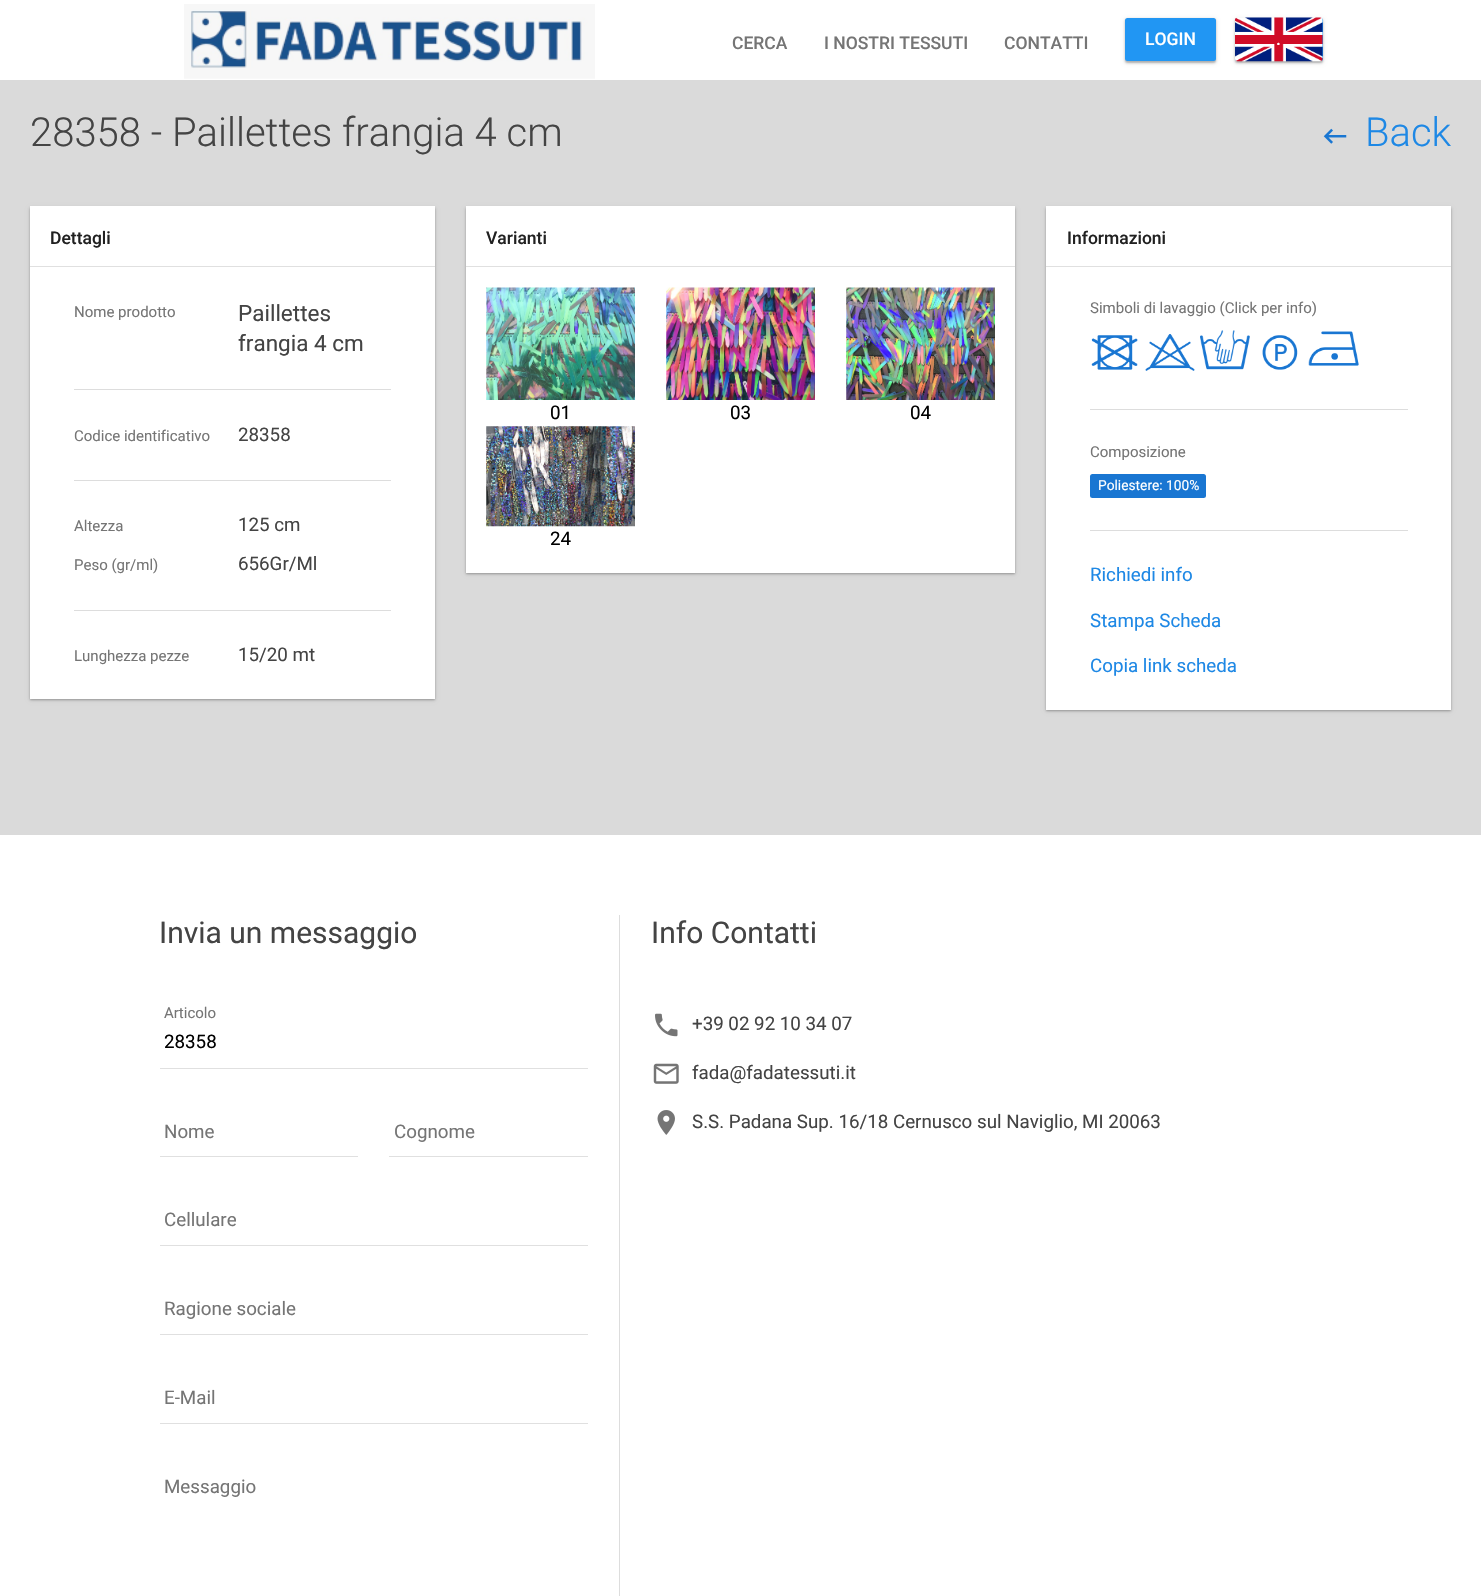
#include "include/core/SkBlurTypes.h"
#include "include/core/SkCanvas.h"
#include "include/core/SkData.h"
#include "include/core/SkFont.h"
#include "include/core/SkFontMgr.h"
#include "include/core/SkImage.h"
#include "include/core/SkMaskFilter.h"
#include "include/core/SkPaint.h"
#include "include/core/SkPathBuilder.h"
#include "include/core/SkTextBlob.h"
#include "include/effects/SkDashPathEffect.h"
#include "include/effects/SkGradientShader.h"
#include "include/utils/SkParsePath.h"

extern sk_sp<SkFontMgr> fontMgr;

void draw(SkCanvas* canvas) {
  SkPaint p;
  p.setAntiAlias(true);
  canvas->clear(SK_ColorWHITE);
  canvas->drawImageRect(SkImages::DeferredFromEncodedData(SkData::MakeFromFileName("images/1.png")), SkRect::MakeLTRB(184, 4, 595, 79), SkSamplingOptions());
  p.setColor(SkColorSetARGB(61, 0, 0, 0));
  p.setMaskFilter(SkMaskFilter::MakeBlur(kNormal_SkBlurStyle, 1));
  canvas->drawRoundRect(SkRect::MakeLTRB(1125, 19, 1216, 63), 2.5f, 2.5f, p);
  p.setMaskFilter(nullptr);
  p.setColor(SkColorSetARGB(31, 0, 0, 0));
  p.setMaskFilter(SkMaskFilter::MakeBlur(kNormal_SkBlurStyle, 2));
  canvas->drawRoundRect(SkRect::MakeLTRB(1125, 19, 1216, 63), 2.5f, 2.5f, p);
  p.setMaskFilter(nullptr);
  p.setColor(SkColorSetRGB(33, 150, 243));
  canvas->drawRoundRect(SkRect::MakeLTRB(1125, 18, 1216, 61), 2.5f, 2.5f, p);
  p.setColor(SkColorSetARGB(61, 0, 0, 0));
  p.setMaskFilter(SkMaskFilter::MakeBlur(kNormal_SkBlurStyle, 1));
  canvas->drawRoundRect(SkRect::MakeLTRB(1235, 19, 1323, 63), 2.5f, 2.5f, p);
  p.setMaskFilter(nullptr);
  p.setColor(SkColorSetARGB(31, 0, 0, 0));
  p.setMaskFilter(SkMaskFilter::MakeBlur(kNormal_SkBlurStyle, 2));
  canvas->drawRoundRect(SkRect::MakeLTRB(1235, 19, 1323, 63), 2.5f, 2.5f, p);
  p.setMaskFilter(nullptr);
  p.setColor(SkColorSetRGB(33, 150, 243));
  canvas->drawRoundRect(SkRect::MakeLTRB(1235, 18, 1323, 61), 2.5f, 2.5f, p);
  canvas->drawImageRect(SkImages::DeferredFromEncodedData(SkData::MakeFromFileName("images/2.png")), SkRect::MakeLTRB(1235, 17, 1323, 62), SkSamplingOptions());
  p.setColor(SkColorSetRGB(218, 218, 218));
  canvas->drawRect(SkRect::MakeLTRB(0, 80, 1481, 835), p);
  canvas->drawImageRect(SkImages::DeferredFromEncodedData(SkData::MakeFromFileName("images/3.png")), SkRect::MakeLTRB(1323, 128, 1347, 144), SkSamplingOptions());
  p.setColor(SkColorSetARGB(61, 0, 0, 0));
  p.setMaskFilter(SkMaskFilter::MakeBlur(kNormal_SkBlurStyle, 1));
  canvas->drawRect(SkRect::MakeLTRB(30, 208, 435, 700), p);
  p.setMaskFilter(nullptr);
  p.setColor(SkColorSetARGB(31, 0, 0, 0));
  p.setMaskFilter(SkMaskFilter::MakeBlur(kNormal_SkBlurStyle, 2));
  canvas->drawRect(SkRect::MakeLTRB(30, 208, 435, 700), p);
  p.setMaskFilter(nullptr);
  p.setColor(SK_ColorWHITE);
  canvas->drawRect(SkRect::MakeLTRB(30, 206, 435, 699), p);
  p.setColor(SkColorSetRGB(224, 224, 224));
  canvas->drawRect(SkRect::MakeLTRB(30, 266, 435, 267), p);
  p.setColor(SkColorSetRGB(221, 221, 221));
  canvas->drawRect(SkRect::MakeLTRB(74, 389, 391, 390), p);
  canvas->drawRect(SkRect::MakeLTRB(74, 480, 391, 481), p);
  canvas->drawRect(SkRect::MakeLTRB(74, 610, 391, 611), p);
  p.setColor(SkColorSetARGB(61, 0, 0, 0));
  p.setMaskFilter(SkMaskFilter::MakeBlur(kNormal_SkBlurStyle, 1));
  canvas->drawRect(SkRect::MakeLTRB(466, 208, 1015, 574), p);
  p.setMaskFilter(nullptr);
  p.setColor(SkColorSetARGB(31, 0, 0, 0));
  p.setMaskFilter(SkMaskFilter::MakeBlur(kNormal_SkBlurStyle, 2));
  canvas->drawRect(SkRect::MakeLTRB(466, 208, 1015, 574), p);
  p.setMaskFilter(nullptr);
  p.setColor(SK_ColorWHITE);
  canvas->drawRect(SkRect::MakeLTRB(466, 206, 1015, 573), p);
  p.setColor(SkColorSetRGB(224, 224, 224));
  canvas->drawRect(SkRect::MakeLTRB(466, 266, 1015, 267), p);
  canvas->drawImageRect(SkImages::DeferredFromEncodedData(SkData::MakeFromFileName("images/4.png")), SkRect::MakeLTRB(486, 287, 635, 400), SkSamplingOptions());
  canvas->drawImageRect(SkImages::DeferredFromEncodedData(SkData::MakeFromFileName("images/5.png")), SkRect::MakeLTRB(666, 287, 815, 400), SkSamplingOptions());
  canvas->drawImageRect(SkImages::DeferredFromEncodedData(SkData::MakeFromFileName("images/6.png")), SkRect::MakeLTRB(846, 287, 995, 400), SkSamplingOptions());
  canvas->drawImageRect(SkImages::DeferredFromEncodedData(SkData::MakeFromFileName("images/7.png")), SkRect::MakeLTRB(486, 426, 635, 527), SkSamplingOptions());
  p.setColor(SkColorSetARGB(61, 0, 0, 0));
  p.setMaskFilter(SkMaskFilter::MakeBlur(kNormal_SkBlurStyle, 1));
  canvas->drawRect(SkRect::MakeLTRB(1046, 208, 1451, 711), p);
  p.setMaskFilter(nullptr);
  p.setColor(SkColorSetARGB(31, 0, 0, 0));
  p.setMaskFilter(SkMaskFilter::MakeBlur(kNormal_SkBlurStyle, 2));
  canvas->drawRect(SkRect::MakeLTRB(1046, 208, 1451, 711), p);
  p.setMaskFilter(nullptr);
  p.setColor(SK_ColorWHITE);
  canvas->drawRect(SkRect::MakeLTRB(1046, 206, 1451, 710), p);
  p.setColor(SkColorSetRGB(224, 224, 224));
  canvas->drawRect(SkRect::MakeLTRB(1046, 266, 1451, 267), p);
  canvas->drawImageRect(SkImages::DeferredFromEncodedData(SkData::MakeFromFileName("images/8.png")), SkRect::MakeLTRB(1091, 335, 1138, 370), SkSamplingOptions());
  canvas->drawImageRect(SkImages::DeferredFromEncodedData(SkData::MakeFromFileName("images/9.png")), SkRect::MakeLTRB(1145, 334, 1195, 371), SkSamplingOptions());
  canvas->drawImageRect(SkImages::DeferredFromEncodedData(SkData::MakeFromFileName("images/10.png")), SkRect::MakeLTRB(1200, 330, 1250, 370), SkSamplingOptions());
  canvas->drawImageRect(SkImages::DeferredFromEncodedData(SkData::MakeFromFileName("images/11.png")), SkRect::MakeLTRB(1262, 335, 1298, 370), SkSamplingOptions());
  canvas->drawImageRect(SkImages::DeferredFromEncodedData(SkData::MakeFromFileName("images/12.png")), SkRect::MakeLTRB(1308, 331, 1359, 366), SkSamplingOptions());
  p.setColor(SkColorSetRGB(221, 221, 221));
  canvas->drawRect(SkRect::MakeLTRB(1090, 409, 1408, 410), p);
  p.setColor(SkColorSetRGB(25, 118, 210));
  canvas->drawRoundRect(SkRect::MakeLTRB(1090, 474, 1206, 498), 2.5f, 2.5f, p);
  p.setColor(SkColorSetRGB(221, 221, 221));
  canvas->drawRect(SkRect::MakeLTRB(1090, 530, 1408, 531), p);
  p.setColor(SkColorSetRGB(224, 224, 224));
  canvas->drawRect(SkRect::MakeLTRB(160, 1068, 588, 1069), p);
  canvas->drawRect(SkRect::MakeLTRB(160, 1156, 358, 1157), p);
  canvas->drawRect(SkRect::MakeLTRB(389, 1156, 588, 1157), p);
  canvas->drawRect(SkRect::MakeLTRB(160, 1245, 588, 1246), p);
  canvas->drawRect(SkRect::MakeLTRB(160, 1334, 588, 1335), p);
  canvas->drawRect(SkRect::MakeLTRB(160, 1423, 588, 1424), p);
  p.setColor(SkColorSetRGB(221, 221, 221));
  canvas->drawRect(SkRect::MakeLTRB(619, 915, 620, 1596), p);
  canvas->drawImageRect(SkImages::DeferredFromEncodedData(SkData::MakeFromFileName("images/13.png")), SkRect::MakeLTRB(655, 1013, 678, 1037), SkSamplingOptions());
  canvas->drawImageRect(SkImages::DeferredFromEncodedData(SkData::MakeFromFileName("images/14.png")), SkRect::MakeLTRB(653, 1063, 679, 1084), SkSamplingOptions());
  canvas->drawImageRect(SkImages::DeferredFromEncodedData(SkData::MakeFromFileName("images/15.png")), SkRect::MakeLTRB(657, 1110, 675, 1135), SkSamplingOptions());
  SkFont font1(fontMgr->matchFamilyStyle("Roboto", SkFontStyle(500, SkFontStyle::kNormal_Width, SkFontStyle::kUpright_Slant)), 17.5f);
  font1.setSubpixel(true);
  p.setColor(SkColorSetRGB(117, 117, 117));
  canvas->drawString("CERCA", 732, 49, font1, p);
  canvas->drawString("I NOSTRI TESSUTI", 824, 49, font1, p);
  canvas->drawString("CONTATTI", 1004, 49, font1, p);
  p.setColor(SK_ColorWHITE);
  canvas->drawString("LOGIN", 1145, 45, font1, p);
  canvas->drawString(".", 1276, 45, font1, p);
  SkFont font2(fontMgr->matchFamilyStyle("Roboto", SkFontStyle(300, SkFontStyle::kNormal_Width, SkFontStyle::kUpright_Slant)), 40);
  font2.setSubpixel(true);
  p.setColor(SkColorSetRGB(68, 68, 68));
  canvas->drawString("28358 - Paillettes frangia 4 cm", 30, 146, font2, p);
  p.setColor(SkColorSetRGB(30, 136, 229));
  canvas->drawString("Back", 1365, 146, font2, p);
  p.setColor(SkColorSetRGB(33, 33, 33));
  canvas->drawString("Dettagli", 50, 244, font1, p);
  SkFont font3(fontMgr->matchFamilyStyle("Roboto", SkFontStyle::Normal()), 15);
  font3.setSubpixel(true);
  p.setColor(SkColorSetRGB(117, 117, 117));
  canvas->drawString("Nome prodotto", 74, 317, font3, p);
  SkFont font4(fontMgr->matchFamilyStyle("Roboto", SkFontStyle::Normal()), 22.5f);
  font4.setSubpixel(true);
  p.setColor(SkColorSetRGB(68, 68, 68));
  canvas->drawString("Paillettes", 238, 321, font4, p);
  canvas->drawString("frangia 4 cm", 238, 351, font4, p);
  p.setColor(SkColorSetRGB(117, 117, 117));
  canvas->drawString("Codice identificativo", 74, 441, font3, p);
  SkFont font5(fontMgr->matchFamilyStyle("Roboto", SkFontStyle::Normal()), 18.75f);
  font5.setSubpixel(true);
  p.setColor(SkColorSetRGB(68, 68, 68));
  canvas->drawString("28358", 238, 441, font5, p);
  p.setColor(SkColorSetRGB(117, 117, 117));
  canvas->drawString("Altezza", 74, 531, font3, p);
  p.setColor(SkColorSetRGB(68, 68, 68));
  canvas->drawString("125 cm", 238, 531, font5, p);
  p.setColor(SkColorSetRGB(117, 117, 117));
  canvas->drawString("Peso (gr/ml)", 74, 570, font3, p);
  p.setColor(SkColorSetRGB(68, 68, 68));
  canvas->drawString("656Gr/Ml", 238, 570, font5, p);
  p.setColor(SkColorSetRGB(117, 117, 117));
  canvas->drawString("Lunghezza pezze", 74, 661, font3, p);
  p.setColor(SkColorSetRGB(68, 68, 68));
  canvas->drawString("15/20 mt", 238, 661, font5, p);
  p.setColor(SkColorSetRGB(33, 33, 33));
  canvas->drawString("Varianti", 486, 244, font1, p);
  p.setColor(SK_ColorBLACK);
  canvas->drawString("01", 550, 419, font5, p);
  canvas->drawString("03", 730, 419, font5, p);
  canvas->drawString("04", 910, 419, font5, p);
  canvas->drawString("24", 550, 545, font5, p);
  p.setColor(SkColorSetRGB(33, 33, 33));
  canvas->drawString("Informazioni", 1067, 244, font1, p);
  p.setColor(SkColorSetRGB(117, 117, 117));
  canvas->drawString("Simboli di lavaggio (Click per info)", 1090, 313, font3, p);
  canvas->drawString("Composizione", 1090, 457, font3, p);
  SkFont font6(fontMgr->matchFamilyStyle("Roboto", SkFontStyle::Normal()), 13.75f);
  font6.setSubpixel(true);
  p.setColor(SK_ColorWHITE);
  canvas->drawString("Poliestere: 100%", 1098, 490, font6, p);
  p.setColor(SkColorSetRGB(30, 136, 229));
  canvas->drawString("Richiedi info", 1090, 581, font5, p);
  canvas->drawString("Stampa Scheda", 1090, 627, font5, p);
  canvas->drawString("Copia link scheda", 1090, 672, font5, p);
  SkFont font7(fontMgr->matchFamilyStyle("Roboto", SkFontStyle::Normal()), 30);
  font7.setSubpixel(true);
  p.setColor(SkColorSetRGB(68, 68, 68));
  canvas->drawString("Invia un messaggio", 159, 943, font7, p);
  p.setColor(SkColorSetRGB(117, 117, 117));
  canvas->drawString("Articolo", 164, 1018, font3, p);
  p.setColor(SK_ColorBLACK);
  canvas->drawString("28358", 164, 1048, font5, p);
  p.setColor(SkColorSetRGB(117, 117, 117));
  canvas->drawString("Nome", 164, 1138, font5, p);
  canvas->drawString("Cognome", 394, 1138, font5, p);
  canvas->drawString("Cellulare", 164, 1226, font5, p);
  canvas->drawString("Ragione sociale", 164, 1315, font5, p);
  canvas->drawString("E-Mail", 164, 1404, font5, p);
  canvas->drawString("Messaggio", 164, 1493, font5, p);
  p.setColor(SkColorSetRGB(68, 68, 68));
  canvas->drawString("Info Contatti", 651, 943, font7, p);
  canvas->drawString("+39 02 92 10 34 07", 692, 1030, font5, p);
  canvas->drawString("fada@fadatessuti.it", 692, 1079, font5, p);
  canvas->drawString("S.S. Padana Sup. 16/18 Cernusco sul Naviglio, MI 20063", 692, 1128, font5, p);
}
